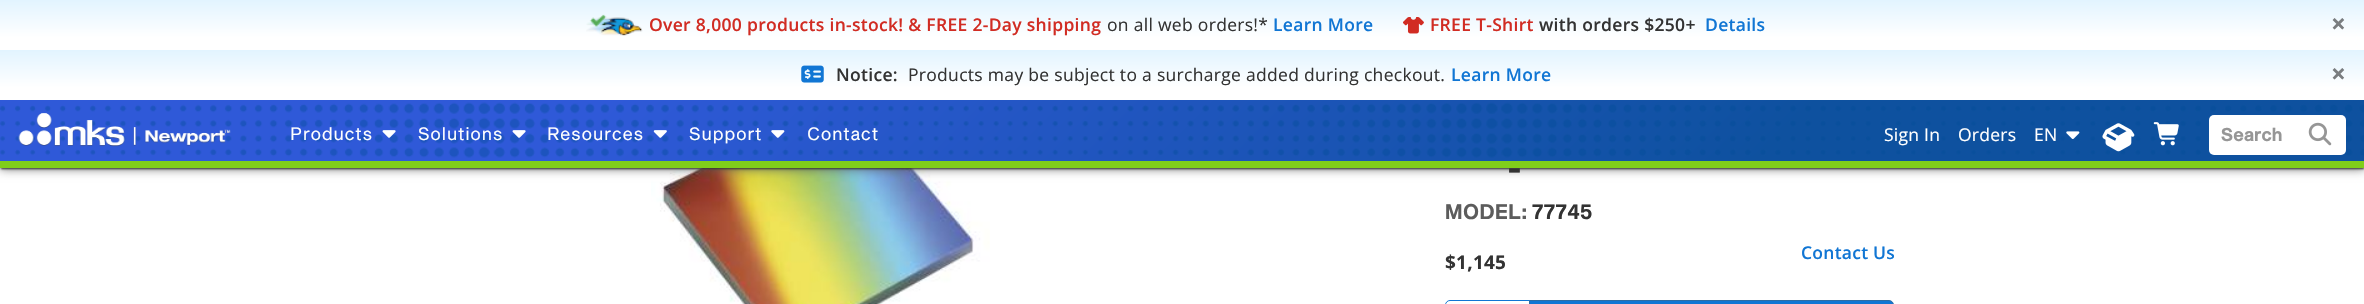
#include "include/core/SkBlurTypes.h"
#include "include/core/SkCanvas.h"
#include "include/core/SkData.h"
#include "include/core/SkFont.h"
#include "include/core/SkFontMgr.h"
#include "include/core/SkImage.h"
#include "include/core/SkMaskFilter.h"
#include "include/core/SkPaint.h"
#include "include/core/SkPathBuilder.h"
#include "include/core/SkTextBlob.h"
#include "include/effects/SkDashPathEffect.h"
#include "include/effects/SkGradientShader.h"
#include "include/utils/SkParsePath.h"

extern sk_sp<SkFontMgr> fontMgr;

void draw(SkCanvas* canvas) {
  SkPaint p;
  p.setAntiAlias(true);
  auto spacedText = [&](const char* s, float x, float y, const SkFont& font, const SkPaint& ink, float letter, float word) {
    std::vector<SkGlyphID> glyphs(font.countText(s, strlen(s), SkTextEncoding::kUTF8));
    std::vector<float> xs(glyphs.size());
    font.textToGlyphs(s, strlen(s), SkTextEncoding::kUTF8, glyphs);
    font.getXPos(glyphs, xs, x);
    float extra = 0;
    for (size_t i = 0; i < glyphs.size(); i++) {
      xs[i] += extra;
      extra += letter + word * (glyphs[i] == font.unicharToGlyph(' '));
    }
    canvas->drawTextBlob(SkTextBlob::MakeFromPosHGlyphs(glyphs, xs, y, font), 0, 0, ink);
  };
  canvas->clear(SK_ColorWHITE);
  canvas->drawImageRect(SkImages::DeferredFromEncodedData(SkData::MakeFromFileName("images/14.png")), SkRect::MakeLTRB(651, 168, 990, 304), SkSamplingOptions());
  p.setColor(SkColorSetRGB(92, 92, 92));
  p.setMaskFilter(SkMaskFilter::MakeBlur(kNormal_SkBlurStyle, 5));
  canvas->drawRect(SkRect::MakeLTRB(0, 0, 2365, 168), p);
  p.setMaskFilter(nullptr);
  {
    const SkColor colors[] = {SkColorSetRGB(226, 244, 255), SK_ColorWHITE};
    const float stops[] = {0, 0.75f};
    const SkPoint ends[] = {{1183, 0}, {1183, 50}};
    p.setShader(SkGradientShader::MakeLinear(ends, colors, stops, 2, SkTileMode::kClamp));
    p.setAlpha(255);
  }
  canvas->drawRect(SkRect::MakeLTRB(0, 0, 2364, 50), p);
  canvas->drawImageRect(SkImages::DeferredFromEncodedData(SkData::MakeFromFileName("images/1.png")), SkRect::MakeLTRB(586, 14, 643, 36), SkSamplingOptions());
  canvas->drawImageRect(SkImages::DeferredFromEncodedData(SkData::MakeFromFileName("images/2.png")), SkRect::MakeLTRB(1403, 17, 1424, 34), SkSamplingOptions());
  {
    const SkColor colors[] = {SkColorSetRGB(226, 244, 255), SK_ColorWHITE};
    const float stops[] = {0, 0.75f};
    const SkPoint ends[] = {{1183, 50}, {1183, 100}};
    p.setShader(SkGradientShader::MakeLinear(ends, colors, stops, 2, SkTileMode::kClamp));
    p.setAlpha(255);
  }
  canvas->drawRect(SkRect::MakeLTRB(0, 50, 2364, 100), p);
  canvas->drawImageRect(SkImages::DeferredFromEncodedData(SkData::MakeFromFileName("images/3.png")), SkRect::MakeLTRB(801, 65, 824, 83), SkSamplingOptions());
  p.setShader(nullptr);
  p.setColor(SkColorSetRGB(51, 51, 51));
  p.setMaskFilter(SkMaskFilter::MakeBlur(kNormal_SkBlurStyle, 1));
  canvas->drawRect(SkRect::MakeLTRB(1, 104, 2364, 169), p);
  p.setMaskFilter(nullptr);
  {
    const SkColor colors[] = {SkColorSetRGB(47, 89, 216), SkColorSetRGB(14, 81, 159)};
    const float stops[] = {0.25f, 0.75f};
    const SkPoint ends[] = {{576, -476}, {1789, 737}};
    p.setShader(SkGradientShader::MakeLinear(ends, colors, stops, 2, SkTileMode::kClamp));
    p.setAlpha(255);
  }
  canvas->drawRect(SkRect::MakeLTRB(0, 100, 2364, 161), p);
  p.setShader(nullptr);
  p.setColor(SkColorSetRGB(128, 206, 26));
  canvas->drawRect(SkRect::MakeLTRB(0, 161, 2364, 168), p);
  canvas->drawImageRect(SkImages::DeferredFromEncodedData(SkData::MakeFromFileName("images/4.png")), SkRect::MakeLTRB(0, 102, 2364, 158), SkSamplingOptions());
  canvas->drawImageRect(SkImages::DeferredFromEncodedData(SkData::MakeFromFileName("images/5.png")), SkRect::MakeLTRB(18, 113, 231, 147), SkSamplingOptions());
  canvas->drawImageRect(SkImages::DeferredFromEncodedData(SkData::MakeFromFileName("images/6.png")), SkRect::MakeLTRB(382, 130, 396, 138), SkSamplingOptions());
  canvas->drawImageRect(SkImages::DeferredFromEncodedData(SkData::MakeFromFileName("images/7.png")), SkRect::MakeLTRB(512, 130, 526, 138), SkSamplingOptions());
  canvas->drawImageRect(SkImages::DeferredFromEncodedData(SkData::MakeFromFileName("images/8.png")), SkRect::MakeLTRB(653, 130, 667, 138), SkSamplingOptions());
  canvas->drawImageRect(SkImages::DeferredFromEncodedData(SkData::MakeFromFileName("images/9.png")), SkRect::MakeLTRB(771, 130, 785, 138), SkSamplingOptions());
  canvas->drawImageRect(SkImages::DeferredFromEncodedData(SkData::MakeFromFileName("images/10.png")), SkRect::MakeLTRB(2066, 131, 2080, 139), SkSamplingOptions());
  canvas->drawImageRect(SkImages::DeferredFromEncodedData(SkData::MakeFromFileName("images/11.png")), SkRect::MakeLTRB(2102, 123, 2135, 152), SkSamplingOptions());
  canvas->drawImageRect(SkImages::DeferredFromEncodedData(SkData::MakeFromFileName("images/12.png")), SkRect::MakeLTRB(2153, 122, 2179, 146), SkSamplingOptions());
  p.setColor(SK_ColorWHITE);
  canvas->drawRoundRect(SkRect::MakeLTRB(2209, 115, 2346, 155), 5, 5, p);
  canvas->drawImageRect(SkImages::DeferredFromEncodedData(SkData::MakeFromFileName("images/13.png")), SkRect::MakeLTRB(2308, 122, 2332, 146), SkSamplingOptions());
  p.setStyle(SkPaint::kStroke_Style);
  p.setStrokeWidth(1);
  p.setColor(SkColorSetRGB(17, 118, 212));
  canvas->drawPath(SkPathBuilder().moveTo(1450, 300.5f).lineTo(1529.5f, 300.5f).lineTo(1529.5f, 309.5f).lineTo(1450, 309.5f).cubicTo(1447.5f, 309.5f, 1445.5f, 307.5f, 1445.5f, 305).cubicTo(1445.5f, 302.5f, 1447.5f, 300.5f, 1450, 300.5f).close().detach(), p);
  p.setStyle(SkPaint::kFill_Style);
  canvas->drawPath(SkPathBuilder().moveTo(1529.5f, 300.5f).lineTo(1889, 300.5f).cubicTo(1891.5f, 300.5f, 1893.5f, 302.5f, 1893.5f, 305).cubicTo(1893.5f, 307.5f, 1891.5f, 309.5f, 1889, 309.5f).lineTo(1529.5f, 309.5f).close().detach(), p);
  p.setStyle(SkPaint::kStroke_Style);
  p.setColor(SkColorSetRGB(46, 109, 164));
  canvas->drawPath(SkPathBuilder().moveTo(1529.5f, 300.5f).lineTo(1889, 300.5f).cubicTo(1891.5f, 300.5f, 1893.5f, 302.5f, 1893.5f, 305).cubicTo(1893.5f, 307.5f, 1891.5f, 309.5f, 1889, 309.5f).lineTo(1529.5f, 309.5f).close().detach(), p);
  SkFont font1(fontMgr->matchFamilyStyle("Open Sans", SkFontStyle(600, SkFontStyle::kNormal_Width, SkFontStyle::kUpright_Slant)), 17.5f);
  font1.setSubpixel(true);
  p.setStyle(SkPaint::kFill_Style);
  p.setColor(SkColorSetRGB(209, 44, 35));
  spacedText("Over 8,000 products in-stock! & FREE 2-Day shipping", 649, 31, font1, p, 0.3f, 0);
  SkFont font2(fontMgr->matchFamilyStyle("Open Sans", SkFontStyle::Normal()), 17.5f);
  font2.setSubpixel(true);
  p.setColor(SkColorSetRGB(51, 51, 51));
  spacedText("on all web orders!*", 1107, 31, font2, p, 0.3f, 0);
  p.setColor(SkColorSetRGB(17, 118, 212));
  spacedText("Learn More", 1273, 31, font1, p, 0.3f, 0);
  p.setColor(SkColorSetRGB(209, 44, 35));
  spacedText("FREE T-Shirt", 1430, 31, font1, p, 0.3f, 0);
  p.setColor(SkColorSetRGB(51, 51, 51));
  spacedText("with orders $250+", 1539, 31, font1, p, 0.3f, 0);
  p.setColor(SkColorSetRGB(17, 118, 212));
  spacedText("Details", 1705, 31, font1, p, 0.3f, 0);
  SkFont font3(fontMgr->matchFamilyStyle("Open Sans", SkFontStyle::Bold()), 26);
  font3.setSubpixel(true);
  p.setColor(SkColorSetRGB(122, 125, 128));
  canvas->drawString("×", 2331, 33, font3, p);
  p.setColor(SkColorSetRGB(51, 51, 51));
  spacedText("Notice:", 836, 81, font1, p, 0.3f, 0);
  spacedText("Products may be subject to a surcharge added during checkout.", 908, 81, font2, p, 0.3f, 0);
  p.setColor(SkColorSetRGB(17, 118, 212));
  spacedText("Learn More", 1451, 81, font1, p, 0.3f, 0);
  p.setColor(SkColorSetRGB(122, 125, 128));
  canvas->drawString("×", 2331, 83, font3, p);
  SkFont font4(fontMgr->matchFamilyStyle("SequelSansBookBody", SkFontStyle::Normal()), 17.5f);
  font4.setSubpixel(true);
  p.setColor(SK_ColorWHITE);
  spacedText("Products", 290, 140, font4, p, 0.6f, 0);
  spacedText("Solutions", 418, 140, font4, p, 0.6f, 0);
  spacedText("Resources", 547, 140, font4, p, 0.6f, 0);
  spacedText("Support", 689, 140, font4, p, 0.6f, 0);
  spacedText("Contact", 807, 140, font4, p, 0.6f, 0);
  spacedText("Sign In", 1884, 141, font2, p, 0.25f, 0);
  spacedText("Orders", 1958, 141, font2, p, 0.25f, 0);
  spacedText("EN", 2034, 141, font2, p, 0.25f, 0);
  SkFont font5(fontMgr->matchFamilyStyle("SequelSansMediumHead", SkFontStyle::Bold()), 17.5f);
  font5.setSubpixel(true);
  p.setColor(SkColorSetRGB(150, 150, 150));
  spacedText("Search", 2221, 141, font5, p, 0.6f, 0);
  SkFont font6(fontMgr->matchFamilyStyle("SequelSansMediumHead", SkFontStyle::Bold()), 32);
  font6.setSubpixel(true);
  p.setColor(SkColorSetRGB(51, 51, 51));
  spacedText("-", 1507, 180, font6, p, 1, 0);
  SkFont font7(fontMgr->matchFamilyStyle("SequelSansMediumHead", SkFontStyle::Bold()), 20);
  font7.setSubpixel(true);
  p.setColor(SkColorSetRGB(92, 92, 92));
  spacedText("MODEL:", 1445, 219, font7, p, 1, 0);
  p.setColor(SkColorSetRGB(51, 51, 51));
  spacedText("77745", 1532, 219, font7, p, 1, 0);
  SkFont font8(fontMgr->matchFamilyStyle("Open Sans", SkFontStyle::Bold()), 19);
  font8.setSubpixel(true);
  spacedText("$1,145", 1445, 269, font8, p, 0.25f, 0);
  p.setColor(SkColorSetRGB(17, 118, 212));
  spacedText("Contact Us", 1801, 259, font1, p, 0.25f, 0);
}
